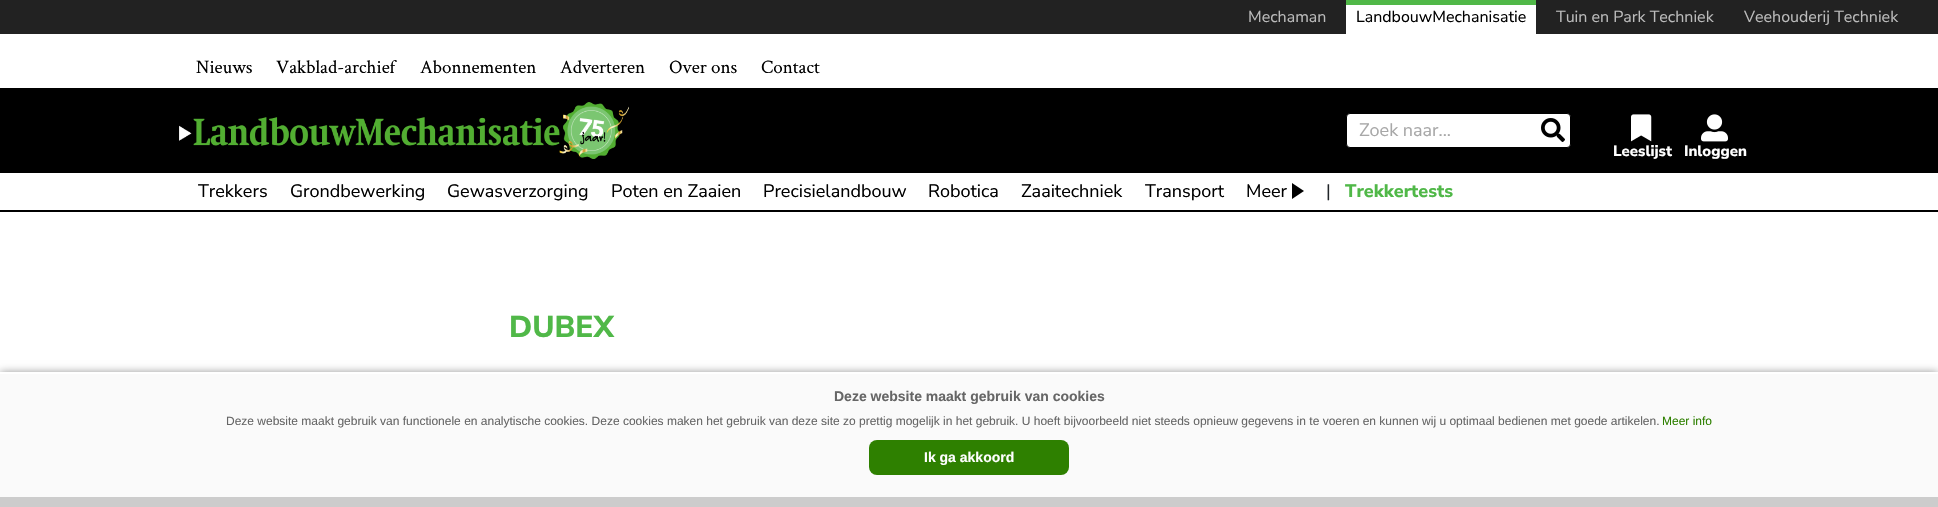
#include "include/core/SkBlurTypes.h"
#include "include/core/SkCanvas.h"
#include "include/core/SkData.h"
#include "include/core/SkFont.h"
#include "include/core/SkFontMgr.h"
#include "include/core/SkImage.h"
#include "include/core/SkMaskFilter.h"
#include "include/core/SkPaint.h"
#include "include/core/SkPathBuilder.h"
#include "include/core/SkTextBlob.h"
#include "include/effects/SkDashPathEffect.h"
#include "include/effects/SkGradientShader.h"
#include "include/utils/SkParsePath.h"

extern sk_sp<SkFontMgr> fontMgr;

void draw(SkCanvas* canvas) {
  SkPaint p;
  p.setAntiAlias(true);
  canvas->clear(SK_ColorWHITE);
  p.setColor(SkColorSetRGB(34, 34, 34));
  canvas->drawRect(SkRect::MakeLTRB(0, 0, 1938, 34), p);
  p.setColor(SK_ColorWHITE);
  canvas->drawRect(SkRect::MakeLTRB(1346, 5, 1536, 34), p);
  p.setColor(SkColorSetRGB(80, 184, 72));
  canvas->drawRect(SkRect::MakeLTRB(1346, 0, 1536, 5), p);
  p.setColor(SK_ColorBLACK);
  canvas->drawRect(SkRect::MakeLTRB(0, 88, 1938, 173), p);
  canvas->drawImageRect(SkImages::DeferredFromEncodedData(SkData::MakeFromFileName("images/1.png")), SkRect::MakeLTRB(179, 102, 629, 159), SkSamplingOptions());
  p.setColor(SK_ColorWHITE);
  canvas->drawRoundRect(SkRect::MakeLTRB(1346.5f, 113.5f, 1570.5f, 147.5f), 3.5f, 3.5f, p);
  p.setStyle(SkPaint::kStroke_Style);
  p.setStrokeWidth(1);
  p.setColor(SK_ColorBLACK);
  canvas->drawRoundRect(SkRect::MakeLTRB(1346.5f, 113.5f, 1570.5f, 147.5f), 3.5f, 3.5f, p);
  canvas->drawImageRect(SkImages::DeferredFromEncodedData(SkData::MakeFromFileName("images/2.png")), SkRect::MakeLTRB(1541, 118, 1565, 142), SkSamplingOptions());
  canvas->drawImageRect(SkImages::DeferredFromEncodedData(SkData::MakeFromFileName("images/3.png")), SkRect::MakeLTRB(1631, 114, 1652, 142), SkSamplingOptions());
  canvas->drawImageRect(SkImages::DeferredFromEncodedData(SkData::MakeFromFileName("images/4.png")), SkRect::MakeLTRB(1701, 114, 1728, 142), SkSamplingOptions());
  p.setStyle(SkPaint::kFill_Style);
  canvas->drawRect(SkRect::MakeLTRB(0, 210, 1938, 212), p);
  canvas->drawPath(SkPathBuilder().moveTo(1292, 199).lineTo(1292, 183).lineTo(1304, 191).close().detach(), p);
  p.setColor(SkColorSetARGB(102, 0, 0, 0));
  p.setMaskFilter(SkMaskFilter::MakeBlur(kNormal_SkBlurStyle, 4));
  canvas->drawRect(SkRect::MakeLTRB(0, 372, 1938, 507), p);
  p.setMaskFilter(nullptr);
  p.setColor(SkColorSetRGB(250, 250, 250));
  canvas->drawRect(SkRect::MakeLTRB(0, 374, 1938, 497), p);
  p.setColor(SK_ColorWHITE);
  canvas->drawRect(SkRect::MakeLTRB(0, 372, 1938, 374), p);
  p.setColor(SkColorSetRGB(204, 204, 204));
  canvas->drawRect(SkRect::MakeLTRB(0, 497, 1938, 507), p);
  p.setColor(SkColorSetRGB(46, 128, 0));
  canvas->drawRoundRect(SkRect::MakeLTRB(869, 440, 1069, 475), 8, 8, p);
  SkFont font1(fontMgr->matchFamilyStyle("Nunito Sans", SkFontStyle::Normal()), 16);
  font1.setSubpixel(true);
  p.setColor(SkColorSetRGB(187, 187, 187));
  canvas->drawString("Mechaman", 1248, 22, font1, p);
  p.setColor(SK_ColorBLACK);
  canvas->drawString("LandbouwMechanisatie", 1356, 22, font1, p);
  p.setColor(SkColorSetRGB(187, 187, 187));
  canvas->drawString("Tuin en Park Techniek", 1556, 22, font1, p);
  canvas->drawString("Veehouderij Techniek", 1744, 22, font1, p);
  SkFont font2(fontMgr->matchFamilyStyle("Crimson Text", SkFontStyle::Normal()), 19);
  font2.setSubpixel(true);
  p.setColor(SK_ColorBLACK);
  canvas->drawString("Nieuws", 196, 73, font2, p);
  canvas->drawString("Vakblad-archief", 276, 73, font2, p);
  canvas->drawString("Abonnementen", 420, 73, font2, p);
  canvas->drawString("Adverteren", 560, 73, font2, p);
  canvas->drawString("Over ons", 669, 73, font2, p);
  canvas->drawString("Contact", 761, 73, font2, p);
  SkFont font3(fontMgr->matchFamilyStyle("Nunito Sans", SkFontStyle::Normal()), 18);
  font3.setSubpixel(true);
  p.setColor(SkColorSetRGB(168, 168, 168));
  canvas->drawString("Zoek naar...", 1359, 136, font3, p);
  SkFont font4(fontMgr->matchFamilyStyle("Nunito Sans", SkFontStyle(800, SkFontStyle::kNormal_Width, SkFontStyle::kUpright_Slant)), 15);
  font4.setSubpixel(true);
  p.setColor(SK_ColorWHITE);
  canvas->drawString("Leeslijst", 1613, 156, font4, p);
  canvas->drawString("Inloggen", 1684, 156, font4, p);
  p.setColor(SK_ColorBLACK);
  canvas->drawString("Trekkers", 198, 197, font3, p);
  canvas->drawString("Grondbewerking", 290, 197, font3, p);
  canvas->drawString("Gewasverzorging", 447, 197, font3, p);
  canvas->drawString("Poten en Zaaien", 611, 197, font3, p);
  canvas->drawString("Precisielandbouw", 763, 197, font3, p);
  canvas->drawString("Robotica", 928, 197, font3, p);
  canvas->drawString("Zaaitechniek", 1021, 197, font3, p);
  canvas->drawString("Transport", 1145, 197, font3, p);
  canvas->drawString("Meer", 1246, 197, font3, p);
  p.setColor(SkColorSetRGB(33, 37, 41));
  canvas->drawString("|", 1326, 197, font3, p);
  SkFont font5(fontMgr->matchFamilyStyle("Nunito Sans", SkFontStyle(800, SkFontStyle::kNormal_Width, SkFontStyle::kUpright_Slant)), 18);
  font5.setSubpixel(true);
  p.setColor(SkColorSetRGB(80, 184, 72));
  canvas->drawString("Trekkertests", 1345, 197, font5, p);
  SkFont font6(fontMgr->matchFamilyStyle("Nunito Sans", SkFontStyle(800, SkFontStyle::kNormal_Width, SkFontStyle::kUpright_Slant)), 30);
  font6.setSubpixel(true);
  canvas->drawString("DUBEX", 509, 337, font6, p);
  SkFont font7(fontMgr->matchFamilyStyle("Liberation Sans", SkFontStyle::Bold()), 14);
  font7.setSubpixel(true);
  p.setColor(SkColorSetRGB(102, 102, 102));
  canvas->drawString("Deze website maakt gebruik van cookies", 834, 401, font7, p);
  SkFont font8(fontMgr->matchFamilyStyle("Liberation Sans", SkFontStyle::Normal()), 12);
  font8.setSubpixel(true);
  canvas->drawString("Deze website maakt gebruik van functionele en analytische cookies. Deze cookies maken het gebruik van deze site zo prettig mogelijk in het gebruik. U hoeft bijvoorbeeld niet steeds opnieuw gegevens in te voeren en kunnen wij u optimaal bedienen met goede artikelen.", 226, 425, font8, p);
  p.setColor(SkColorSetRGB(46, 128, 0));
  canvas->drawString("Meer info", 1662, 425, font8, p);
  p.setColor(SK_ColorWHITE);
  canvas->drawString("Ik ga akkoord", 924, 462, font7, p);
}
